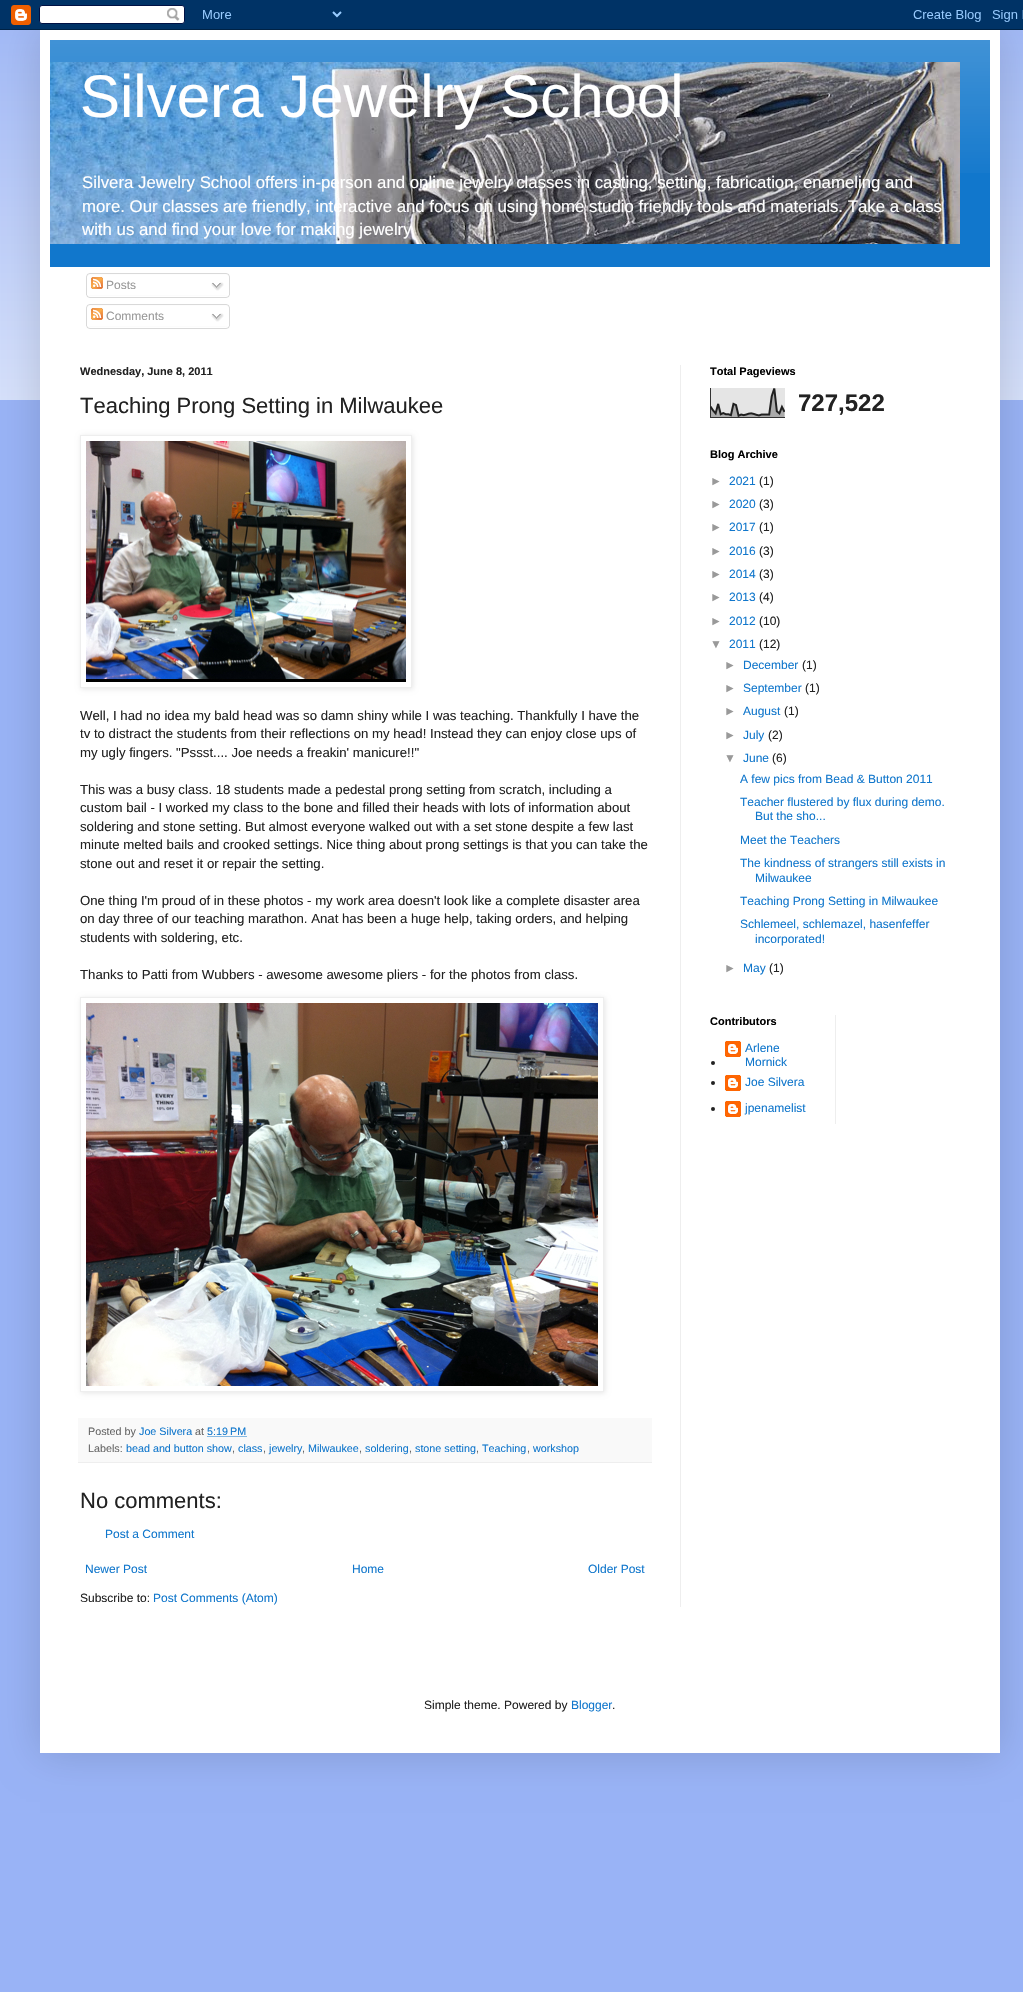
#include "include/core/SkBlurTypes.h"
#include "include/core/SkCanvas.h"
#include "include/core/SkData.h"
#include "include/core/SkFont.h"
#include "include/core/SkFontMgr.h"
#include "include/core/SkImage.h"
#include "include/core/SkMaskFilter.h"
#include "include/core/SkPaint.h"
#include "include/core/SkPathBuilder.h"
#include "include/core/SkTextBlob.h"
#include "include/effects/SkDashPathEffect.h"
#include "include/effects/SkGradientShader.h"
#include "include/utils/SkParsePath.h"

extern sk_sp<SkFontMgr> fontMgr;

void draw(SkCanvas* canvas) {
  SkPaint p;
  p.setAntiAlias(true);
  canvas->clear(SkColorSetRGB(153, 179, 246));
  canvas->drawImageRect(SkImages::DeferredFromEncodedData(SkData::MakeFromFileName("images/2.png")), SkRect::MakeLTRB(0, 30, 1023, 400), SkSamplingOptions());
  p.setColor(SkColorSetARGB(38, 0, 0, 0));
  p.setMaskFilter(SkMaskFilter::MakeBlur(kNormal_SkBlurStyle, 20));
  canvas->drawRect(SkRect::MakeLTRB(40, 30, 1000, 1753), p);
  p.setMaskFilter(nullptr);
  canvas->drawImageRect(SkImages::DeferredFromEncodedData(SkData::MakeFromFileName("images/1.png")), SkRect::MakeLTRB(0, 0, 1023, 30), SkSamplingOptions());
  p.setColor(SK_ColorWHITE);
  canvas->drawRect(SkRect::MakeLTRB(40, 30, 1000, 1753), p);
  p.setColor(SkColorSetRGB(17, 119, 204));
  canvas->drawRect(SkRect::MakeLTRB(50, 40, 990, 267), p);
  canvas->drawImageRect(SkImages::DeferredFromEncodedData(SkData::MakeFromFileName("images/3.png")), SkRect::MakeLTRB(50, 40, 990, 173), SkSamplingOptions());
  canvas->drawImageRect(SkImages::DeferredFromEncodedData(SkData::MakeFromFileName("images/4.png")), SkRect::MakeLTRB(50, 62, 960, 244), SkSamplingOptions());
  canvas->drawImageRect(SkImages::DeferredFromEncodedData(SkData::MakeFromFileName("images/5.png")), SkRect::MakeLTRB(86, 273, 230, 295), SkSamplingOptions());
  canvas->drawImageRect(SkImages::DeferredFromEncodedData(SkData::MakeFromFileName("images/6.png")), SkRect::MakeLTRB(91, 277, 103, 289), SkSamplingOptions());
  canvas->drawImageRect(SkImages::DeferredFromEncodedData(SkData::MakeFromFileName("images/7.png")), SkRect::MakeLTRB(211, 282, 224, 291), SkSamplingOptions());
  canvas->drawImageRect(SkImages::DeferredFromEncodedData(SkData::MakeFromFileName("images/8.png")), SkRect::MakeLTRB(86, 295, 230, 298), SkSamplingOptions());
  canvas->drawImageRect(SkImages::DeferredFromEncodedData(SkData::MakeFromFileName("images/5.png")), SkRect::MakeLTRB(86, 304, 230, 326), SkSamplingOptions());
  canvas->drawImageRect(SkImages::DeferredFromEncodedData(SkData::MakeFromFileName("images/6.png")), SkRect::MakeLTRB(91, 308, 103, 320), SkSamplingOptions());
  canvas->drawImageRect(SkImages::DeferredFromEncodedData(SkData::MakeFromFileName("images/7.png")), SkRect::MakeLTRB(211, 313, 224, 322), SkSamplingOptions());
  canvas->drawImageRect(SkImages::DeferredFromEncodedData(SkData::MakeFromFileName("images/8.png")), SkRect::MakeLTRB(86, 326, 230, 329), SkSamplingOptions());
  p.setColor(SkColorSetRGB(238, 238, 238));
  canvas->drawRect(SkRect::MakeLTRB(680, 365, 681, 1607), p);
  canvas->save();
  canvas->clipPath(SkPathBuilder(SkPathFillType::kEvenOdd).moveTo(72, 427).lineTo(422, 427).lineTo(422, 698).lineTo(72, 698).close().moveTo(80, 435).lineTo(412, 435).lineTo(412, 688).lineTo(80, 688).close().detach(), true);
  p.setColor(SkColorSetARGB(26, 0, 0, 0));
  p.setMaskFilter(SkMaskFilter::MakeBlur(kNormal_SkBlurStyle, 2.5f));
  canvas->drawRect(SkRect::MakeLTRB(81, 436, 413, 689), p);
  p.setMaskFilter(nullptr);
  canvas->restore();
  p.setStyle(SkPaint::kStroke_Style);
  p.setStrokeWidth(1);
  p.setColor(SkColorSetRGB(238, 238, 238));
  canvas->drawRect(SkRect::MakeLTRB(80.5f, 435.5f, 411.5f, 687.5f), p);
  canvas->drawImageRect(SkImages::DeferredFromEncodedData(SkData::MakeFromFileName("images/9.png")), SkRect::MakeLTRB(86, 441, 406, 682), SkSamplingOptions());
  canvas->save();
  canvas->clipPath(SkPathBuilder(SkPathFillType::kEvenOdd).moveTo(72, 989).lineTo(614, 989).lineTo(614, 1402).lineTo(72, 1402).close().moveTo(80, 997).lineTo(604, 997).lineTo(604, 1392).lineTo(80, 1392).close().detach(), true);
  p.setStyle(SkPaint::kFill_Style);
  p.setColor(SkColorSetARGB(26, 0, 0, 0));
  p.setMaskFilter(SkMaskFilter::MakeBlur(kNormal_SkBlurStyle, 2.5f));
  canvas->drawRect(SkRect::MakeLTRB(81, 998, 605, 1393), p);
  p.setMaskFilter(nullptr);
  canvas->restore();
  p.setStyle(SkPaint::kStroke_Style);
  p.setColor(SkColorSetRGB(238, 238, 238));
  canvas->drawRect(SkRect::MakeLTRB(80.5f, 997.5f, 603.5f, 1391.5f), p);
  canvas->drawImageRect(SkImages::DeferredFromEncodedData(SkData::MakeFromFileName("images/10.png")), SkRect::MakeLTRB(86, 1003, 598, 1386), SkSamplingOptions());
  p.setStyle(SkPaint::kFill_Style);
  p.setColor(SkColorSetRGB(249, 249, 249));
  canvas->drawRect(SkRect::MakeLTRB(78, 1418, 652, 1462), p);
  p.setColor(SkColorSetRGB(238, 238, 238));
  canvas->drawRect(SkRect::MakeLTRB(78, 1462, 652, 1463), p);
  p.setStyle(SkPaint::kStroke_Style);
  p.setColor(SkColorSetRGB(17, 119, 204));
  p.setPathEffect(SkDashPathEffect::Make({{1, 1}}, 0));
  canvas->drawPath(SkPathBuilder().moveTo(207.5f, 1436.5f).lineTo(247, 1436.5f).detach(), p);
  p.setPathEffect(nullptr);
  canvas->drawImageRect(SkImages::DeferredFromEncodedData(SkData::MakeFromFileName("images/11.png")), SkRect::MakeLTRB(710, 388, 785, 418), SkSamplingOptions());
  p.setStyle(SkPaint::kFill_Style);
  p.setColor(SkColorSetRGB(34, 34, 34));
  canvas->drawCircle(713, 1063, 2, p);
  canvas->drawImageRect(SkImages::DeferredFromEncodedData(SkData::MakeFromFileName("images/12.png")), SkRect::MakeLTRB(725, 1041, 741, 1057), SkSamplingOptions());
  canvas->drawCircle(713, 1083, 2, p);
  canvas->drawImageRect(SkImages::DeferredFromEncodedData(SkData::MakeFromFileName("images/12.png")), SkRect::MakeLTRB(725, 1075, 741, 1091), SkSamplingOptions());
  canvas->drawCircle(713, 1109, 2, p);
  canvas->drawImageRect(SkImages::DeferredFromEncodedData(SkData::MakeFromFileName("images/12.png")), SkRect::MakeLTRB(725, 1101, 741, 1117), SkSamplingOptions());
  p.setColor(SkColorSetRGB(238, 238, 238));
  canvas->drawRect(SkRect::MakeLTRB(835, 1015, 836, 1124), p);
  SkFont font1(fontMgr->matchFamilyStyle("Liberation Sans", SkFontStyle::Normal()), 60);
  font1.setSubpixel(true);
  p.setColor(SK_ColorWHITE);
  canvas->drawString("Silvera Jewelry School", 80, 117, font1, p);
  SkFont font2(fontMgr->matchFamilyStyle("Liberation Sans", SkFontStyle::Normal()), 16.8f);
  font2.setSubpixel(true);
  canvas->drawString("Silvera Jewelry School offers in-person and online jewelry classes in casting, setting, fabrication, enameling and", 82, 188, font2, p);
  canvas->drawString("more. Our classes are friendly, interactive and focus on using home studio friendly tools and materials. Take a class", 82, 212, font2, p);
  canvas->drawString("with us and find your love for making jewelry", 82, 235, font2, p);
  SkFont font3(fontMgr->matchFamilyStyle("Liberation Sans", SkFontStyle::Normal()), 12);
  font3.setSubpixel(true);
  p.setColor(SkColorSetRGB(153, 153, 153));
  canvas->drawString("Posts", 106, 289, font3, p);
  canvas->drawString("Comments", 106, 320, font3, p);
  SkFont font4(fontMgr->matchFamilyStyle("Liberation Sans", SkFontStyle::Bold()), 11);
  font4.setSubpixel(true);
  p.setColor(SkColorSetRGB(34, 34, 34));
  canvas->drawString("Wednesday, June 8, 2011", 80, 375, font4, p);
  SkFont font5(fontMgr->matchFamilyStyle("Liberation Sans", SkFontStyle::Normal()), 22);
  font5.setSubpixel(true);
  canvas->drawString("Teaching Prong Setting in Milwaukee", 80, 413, font5, p);
  SkFont font6(fontMgr->matchFamilyStyle("Liberation Sans", SkFontStyle::Normal()), 13.2f);
  font6.setSubpixel(true);
  canvas->drawString("Well, I had no idea my bald head was so damn shiny while I was teaching. Thankfully I have the", 80, 720, font6, p);
  canvas->drawString("tv to distract the students from their reflections on my head! Instead they can enjoy close ups of", 80, 738, font6, p);
  canvas->drawString("my ugly fingers. \"Pssst.... Joe needs a freakin' manicure!!\"", 80, 757, font6, p);
  canvas->drawString("This was a busy class. 18 students made a pedestal prong setting from scratch, including a", 80, 794, font6, p);
  canvas->drawString("custom bail - I worked my class to the bone and filled their heads with lots of information about", 80, 812, font6, p);
  canvas->drawString("soldering and stone setting. But almost everyone walked out with a set stone despite a few last", 80, 831, font6, p);
  canvas->drawString("minute melted bails and crooked settings. Nice thing about prong settings is that you can take the", 80, 849, font6, p);
  canvas->drawString("stone out and reset it or repair the setting.", 80, 868, font6, p);
  canvas->drawString("One thing I'm proud of in these photos - my work area doesn't look like a complete disaster area", 80, 905, font6, p);
  canvas->drawString("on day three of our teaching marathon. Anat has been a huge help, taking orders, and helping", 80, 923, font6, p);
  canvas->drawString("students with soldering, etc.", 80, 942, font6, p);
  canvas->drawString("Thanks to Patti from Wubbers - awesome awesome pliers - for the photos from class.", 80, 979, font6, p);
  SkFont font7(fontMgr->matchFamilyStyle("Liberation Sans", SkFontStyle::Normal()), 10.75f);
  font7.setSubpixel(true);
  p.setColor(SkColorSetRGB(102, 102, 102));
  canvas->drawString("Posted by", 88, 1435, font7, p);
  p.setColor(SkColorSetRGB(17, 119, 204));
  canvas->drawString("Joe Silvera", 139, 1435, font7, p);
  p.setColor(SkColorSetRGB(102, 102, 102));
  canvas->drawString("at", 195, 1435, font7, p);
  p.setColor(SkColorSetRGB(17, 119, 204));
  canvas->drawString("5:19 PM", 207, 1435, font7, p);
  p.setColor(SkColorSetRGB(102, 102, 102));
  canvas->drawString("Labels:", 88, 1452, font7, p);
  p.setColor(SkColorSetRGB(17, 119, 204));
  canvas->drawString("bead and button show", 126, 1452, font7, p);
  p.setColor(SkColorSetRGB(102, 102, 102));
  canvas->drawString(",", 232, 1452, font7, p);
  p.setColor(SkColorSetRGB(17, 119, 204));
  canvas->drawString("class", 238, 1452, font7, p);
  p.setColor(SkColorSetRGB(102, 102, 102));
  canvas->drawString(",", 263, 1452, font7, p);
  p.setColor(SkColorSetRGB(17, 119, 204));
  canvas->drawString("jewelry", 269, 1452, font7, p);
  p.setColor(SkColorSetRGB(102, 102, 102));
  canvas->drawString(",", 302, 1452, font7, p);
  p.setColor(SkColorSetRGB(17, 119, 204));
  canvas->drawString("Milwaukee", 308, 1452, font7, p);
  p.setColor(SkColorSetRGB(102, 102, 102));
  canvas->drawString(",", 359, 1452, font7, p);
  p.setColor(SkColorSetRGB(17, 119, 204));
  canvas->drawString("soldering", 365, 1452, font7, p);
  p.setColor(SkColorSetRGB(102, 102, 102));
  canvas->drawString(",", 409, 1452, font7, p);
  p.setColor(SkColorSetRGB(17, 119, 204));
  canvas->drawString("stone setting", 415, 1452, font7, p);
  p.setColor(SkColorSetRGB(102, 102, 102));
  canvas->drawString(",", 476, 1452, font7, p);
  p.setColor(SkColorSetRGB(17, 119, 204));
  canvas->drawString("Teaching", 482, 1452, font7, p);
  p.setColor(SkColorSetRGB(102, 102, 102));
  canvas->drawString(",", 527, 1452, font7, p);
  p.setColor(SkColorSetRGB(17, 119, 204));
  canvas->drawString("workshop", 533, 1452, font7, p);
  p.setColor(SkColorSetRGB(34, 34, 34));
  canvas->drawString("No comments:", 80, 1508, font5, p);
  p.setColor(SkColorSetRGB(17, 119, 204));
  canvas->drawString("Post a Comment", 105, 1538, font3, p);
  canvas->drawString("Newer Post", 85, 1573, font3, p);
  canvas->drawString("Home", 352, 1573, font3, p);
  canvas->drawString("Older Post", 588, 1573, font3, p);
  p.setColor(SkColorSetRGB(34, 34, 34));
  canvas->drawString("Subscribe to:", 80, 1602, font3, p);
  p.setColor(SkColorSetRGB(17, 119, 204));
  canvas->drawString("Post Comments (Atom)", 153, 1602, font3, p);
  p.setColor(SK_ColorBLACK);
  canvas->drawString("Total Pageviews", 710, 375, font4, p);
  SkFont font8(fontMgr->matchFamilyStyle("Liberation Sans", SkFontStyle::Bold()), 24);
  font8.setSubpixel(true);
  p.setColor(SkColorSetRGB(34, 34, 34));
  canvas->drawString("727,522", 798, 411, font8, p);
  p.setColor(SK_ColorBLACK);
  canvas->drawString("Blog Archive", 710, 458, font4, p);
  p.setColor(SkColorSetRGB(153, 153, 153));
  canvas->drawString("►", 710, 485, font3, p);
  p.setColor(SkColorSetRGB(17, 119, 204));
  canvas->drawString("2021", 729, 485, font3, p);
  p.setColor(SkColorSetRGB(34, 34, 34));
  canvas->drawString("(1)", 759, 485, font3, p);
  p.setColor(SkColorSetRGB(153, 153, 153));
  canvas->drawString("►", 710, 508, font3, p);
  p.setColor(SkColorSetRGB(17, 119, 204));
  canvas->drawString("2020", 729, 508, font3, p);
  p.setColor(SkColorSetRGB(34, 34, 34));
  canvas->drawString("(3)", 759, 508, font3, p);
  p.setColor(SkColorSetRGB(153, 153, 153));
  canvas->drawString("►", 710, 531, font3, p);
  p.setColor(SkColorSetRGB(17, 119, 204));
  canvas->drawString("2017", 729, 531, font3, p);
  p.setColor(SkColorSetRGB(34, 34, 34));
  canvas->drawString("(1)", 759, 531, font3, p);
  p.setColor(SkColorSetRGB(153, 153, 153));
  canvas->drawString("►", 710, 555, font3, p);
  p.setColor(SkColorSetRGB(17, 119, 204));
  canvas->drawString("2016", 729, 555, font3, p);
  p.setColor(SkColorSetRGB(34, 34, 34));
  canvas->drawString("(3)", 759, 555, font3, p);
  p.setColor(SkColorSetRGB(153, 153, 153));
  canvas->drawString("►", 710, 578, font3, p);
  p.setColor(SkColorSetRGB(17, 119, 204));
  canvas->drawString("2014", 729, 578, font3, p);
  p.setColor(SkColorSetRGB(34, 34, 34));
  canvas->drawString("(3)", 759, 578, font3, p);
  p.setColor(SkColorSetRGB(153, 153, 153));
  canvas->drawString("►", 710, 601, font3, p);
  p.setColor(SkColorSetRGB(17, 119, 204));
  canvas->drawString("2013", 729, 601, font3, p);
  p.setColor(SkColorSetRGB(34, 34, 34));
  canvas->drawString("(4)", 759, 601, font3, p);
  p.setColor(SkColorSetRGB(153, 153, 153));
  canvas->drawString("►", 710, 625, font3, p);
  p.setColor(SkColorSetRGB(17, 119, 204));
  canvas->drawString("2012", 729, 625, font3, p);
  p.setColor(SkColorSetRGB(34, 34, 34));
  canvas->drawString("(10)", 759, 625, font3, p);
  p.setColor(SkColorSetRGB(153, 153, 153));
  canvas->drawString("▼", 710, 648, font3, p);
  p.setColor(SkColorSetRGB(17, 119, 204));
  canvas->drawString("2011", 729, 648, font3, p);
  p.setColor(SkColorSetRGB(34, 34, 34));
  canvas->drawString("(12)", 759, 648, font3, p);
  p.setColor(SkColorSetRGB(153, 153, 153));
  canvas->drawString("►", 724, 669, font3, p);
  p.setColor(SkColorSetRGB(17, 119, 204));
  canvas->drawString("December", 743, 669, font3, p);
  p.setColor(SkColorSetRGB(34, 34, 34));
  canvas->drawString("(1)", 802, 669, font3, p);
  p.setColor(SkColorSetRGB(153, 153, 153));
  canvas->drawString("►", 724, 692, font3, p);
  p.setColor(SkColorSetRGB(17, 119, 204));
  canvas->drawString("September", 743, 692, font3, p);
  p.setColor(SkColorSetRGB(34, 34, 34));
  canvas->drawString("(1)", 805, 692, font3, p);
  p.setColor(SkColorSetRGB(153, 153, 153));
  canvas->drawString("►", 724, 715, font3, p);
  p.setColor(SkColorSetRGB(17, 119, 204));
  canvas->drawString("August", 743, 715, font3, p);
  p.setColor(SkColorSetRGB(34, 34, 34));
  canvas->drawString("(1)", 784, 715, font3, p);
  p.setColor(SkColorSetRGB(153, 153, 153));
  canvas->drawString("►", 724, 739, font3, p);
  p.setColor(SkColorSetRGB(17, 119, 204));
  canvas->drawString("July", 743, 739, font3, p);
  p.setColor(SkColorSetRGB(34, 34, 34));
  canvas->drawString("(2)", 768, 739, font3, p);
  p.setColor(SkColorSetRGB(153, 153, 153));
  canvas->drawString("▼", 724, 762, font3, p);
  p.setColor(SkColorSetRGB(17, 119, 204));
  canvas->drawString("June", 743, 762, font3, p);
  p.setColor(SkColorSetRGB(34, 34, 34));
  canvas->drawString("(6)", 772, 762, font3, p);
  p.setColor(SkColorSetRGB(17, 119, 204));
  canvas->drawString("A few pics from Bead & Button 2011", 740, 783, font3, p);
  canvas->drawString("Teacher flustered by flux during demo.", 740, 806, font3, p);
  canvas->drawString("But the sho...", 755, 820, font3, p);
  canvas->drawString("Meet the Teachers", 740, 844, font3, p);
  canvas->drawString("The kindness of strangers still exists in", 740, 867, font3, p);
  canvas->drawString("Milwaukee", 755, 882, font3, p);
  canvas->drawString("Teaching Prong Setting in Milwaukee", 740, 905, font3, p);
  canvas->drawString("Schlemeel, schlemazel, hasenfeffer", 740, 928, font3, p);
  canvas->drawString("incorporated!", 755, 943, font3, p);
  p.setColor(SkColorSetRGB(153, 153, 153));
  canvas->drawString("►", 724, 972, font3, p);
  p.setColor(SkColorSetRGB(17, 119, 204));
  canvas->drawString("May", 743, 972, font3, p);
  p.setColor(SkColorSetRGB(34, 34, 34));
  canvas->drawString("(1)", 769, 972, font3, p);
  p.setColor(SK_ColorBLACK);
  canvas->drawString("Contributors", 710, 1025, font4, p);
  p.setColor(SkColorSetRGB(17, 119, 204));
  canvas->drawString("Arlene", 745, 1052, font3, p);
  canvas->drawString("Mornick", 745, 1066, font3, p);
  canvas->drawString("Joe Silvera", 745, 1086, font3, p);
  canvas->drawString("jpenamelist", 745, 1112, font3, p);
  p.setColor(SkColorSetRGB(34, 34, 34));
  canvas->drawString("Simple theme. Powered by", 424, 1709, font3, p);
  p.setColor(SkColorSetRGB(17, 119, 204));
  canvas->drawString("Blogger", 571, 1709, font3, p);
  p.setColor(SkColorSetRGB(34, 34, 34));
  canvas->drawString(".", 612, 1709, font3, p);
}
